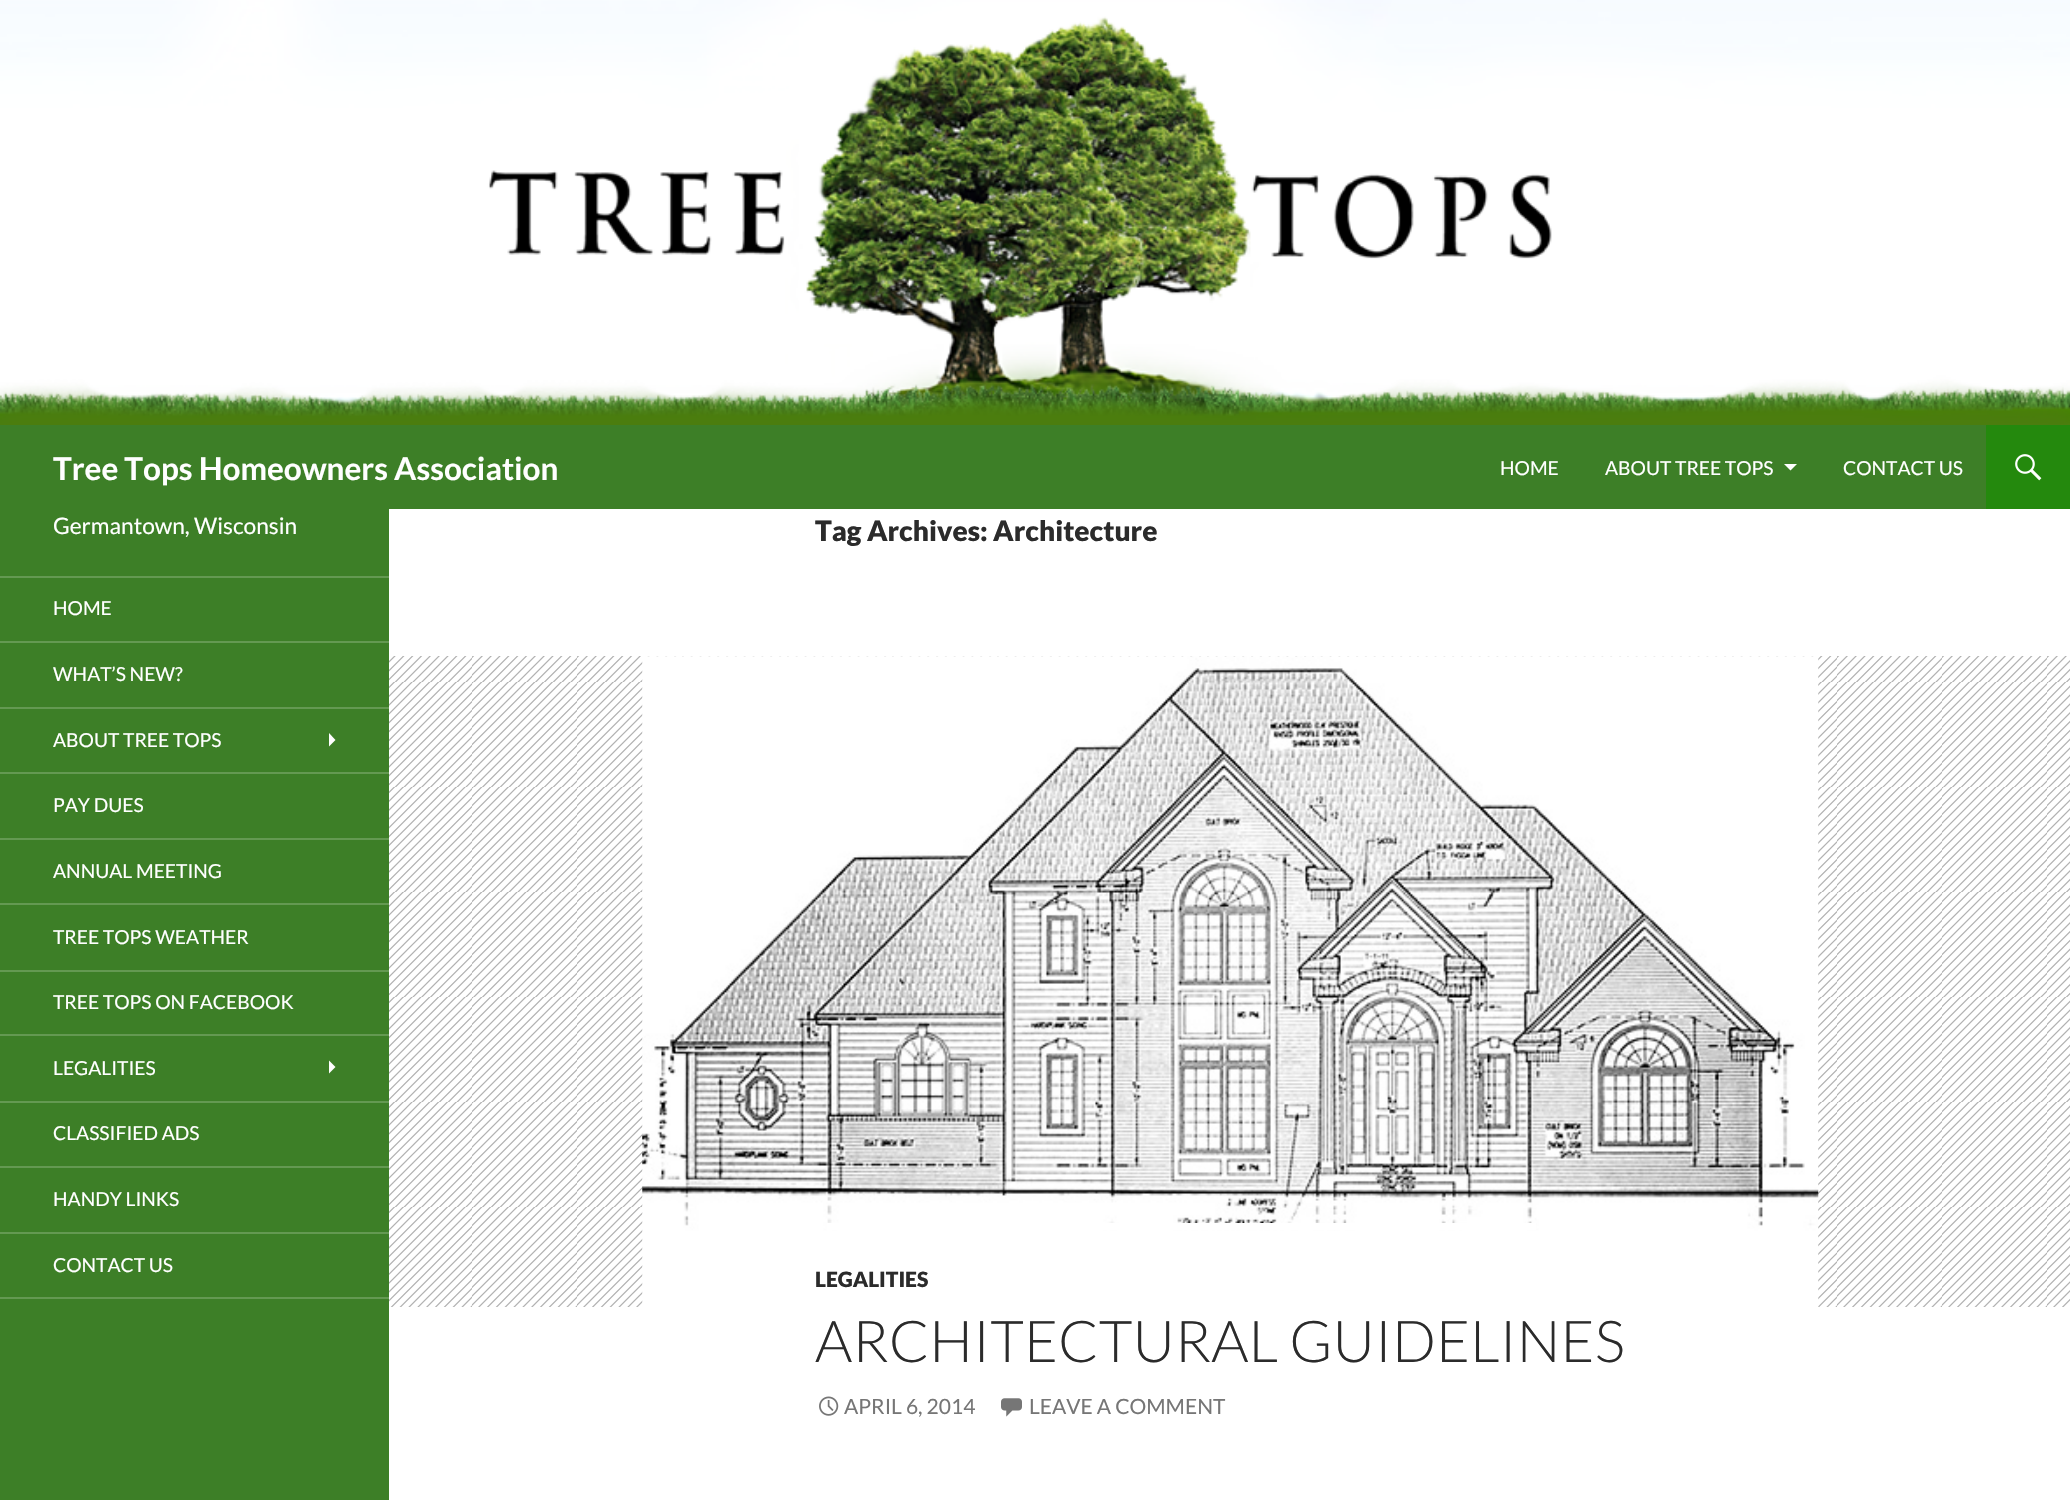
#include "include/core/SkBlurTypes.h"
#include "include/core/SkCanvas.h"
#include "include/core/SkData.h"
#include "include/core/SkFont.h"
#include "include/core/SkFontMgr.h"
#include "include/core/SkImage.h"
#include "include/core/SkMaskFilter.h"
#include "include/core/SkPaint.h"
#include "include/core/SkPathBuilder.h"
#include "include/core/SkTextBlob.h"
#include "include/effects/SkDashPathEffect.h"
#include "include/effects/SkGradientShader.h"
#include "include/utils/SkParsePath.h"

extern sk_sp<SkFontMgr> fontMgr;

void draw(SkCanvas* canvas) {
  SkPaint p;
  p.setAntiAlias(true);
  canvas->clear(SK_ColorWHITE);
  canvas->drawImageRect(SkImages::DeferredFromEncodedData(SkData::MakeFromFileName("images/1.png")), SkRect::MakeLTRB(0, 0, 2070, 425), SkSamplingOptions());
  p.setColor(SkColorSetRGB(61, 127, 39));
  canvas->drawRect(SkRect::MakeLTRB(0, 425, 1986, 509), p);
  p.setColor(SK_ColorWHITE);
  canvas->drawPath(SkPathBuilder().moveTo(1784, 464).lineTo(1790.5f, 470.5f).lineTo(1797, 464).close().detach(), p);
  p.setColor(SkColorSetRGB(36, 137, 13));
  canvas->drawRect(SkRect::MakeLTRB(1986, 425, 2070, 509), p);
  canvas->drawImageRect(SkImages::DeferredFromEncodedData(SkData::MakeFromFileName("images/2.png")), SkRect::MakeLTRB(2015, 454, 2042, 481), SkSamplingOptions());
  p.setColor(SkColorSetRGB(61, 127, 39));
  canvas->drawRect(SkRect::MakeLTRB(0, 509, 389, 1500), p);
  p.setColor(SkColorSetRGB(100, 153, 82));
  canvas->drawRect(SkRect::MakeLTRB(0, 1297, 389, 1299), p);
  canvas->drawRect(SkRect::MakeLTRB(0, 576, 389, 578), p);
  canvas->drawRect(SkRect::MakeLTRB(0, 641, 389, 643), p);
  canvas->drawRect(SkRect::MakeLTRB(0, 707, 389, 709), p);
  p.setColor(SK_ColorWHITE);
  canvas->drawPath(SkPathBuilder().moveTo(329, 746.5f).lineTo(335.5f, 740).lineTo(329, 733).close().detach(), p);
  p.setColor(SkColorSetRGB(100, 153, 82));
  canvas->drawRect(SkRect::MakeLTRB(0, 772, 389, 774), p);
  canvas->drawRect(SkRect::MakeLTRB(0, 838, 389, 840), p);
  canvas->drawRect(SkRect::MakeLTRB(0, 903, 389, 905), p);
  canvas->drawRect(SkRect::MakeLTRB(0, 970, 389, 972), p);
  canvas->drawRect(SkRect::MakeLTRB(0, 1034, 389, 1036), p);
  p.setColor(SK_ColorWHITE);
  canvas->drawPath(SkPathBuilder().moveTo(329, 1073.5f).lineTo(335.5f, 1067).lineTo(329, 1060.5f).close().detach(), p);
  p.setColor(SkColorSetRGB(100, 153, 82));
  canvas->drawRect(SkRect::MakeLTRB(0, 1101, 389, 1103), p);
  canvas->drawRect(SkRect::MakeLTRB(0, 1166, 389, 1168), p);
  canvas->drawRect(SkRect::MakeLTRB(0, 1232, 389, 1234), p);
  p.setColor(SkColorSetRGB(178, 178, 178));
  canvas->drawRect(SkRect::MakeLTRB(389, 656, 2070, 1307), p);
  canvas->drawImageRect(SkImages::DeferredFromEncodedData(SkData::MakeFromFileName("images/3.png")), SkRect::MakeLTRB(389, 656, 2070, 1307), SkSamplingOptions());
  canvas->drawImageRect(SkImages::DeferredFromEncodedData(SkData::MakeFromFileName("images/4.png")), SkRect::MakeLTRB(642, 656, 1819, 1307), SkSamplingOptions());
  p.setColor(SK_ColorWHITE);
  canvas->drawRect(SkRect::MakeLTRB(827, 1223, 1536, 1230), p);
  canvas->drawImageRect(SkImages::DeferredFromEncodedData(SkData::MakeFromFileName("images/5.png")), SkRect::MakeLTRB(819, 1396, 839, 1416), SkSamplingOptions());
  canvas->drawImageRect(SkImages::DeferredFromEncodedData(SkData::MakeFromFileName("images/6.png")), SkRect::MakeLTRB(1001, 1398, 1022, 1417), SkSamplingOptions());
  canvas->save();
  canvas->clipRect(SkRect::MakeLTRB(53, 425, 558, 509));
  SkFont font1(fontMgr->matchFamilyStyle("Lato", SkFontStyle::Bold()), 31.5f);
  font1.setSubpixel(true);
  canvas->drawString("Tree Tops Homeowners Association", 53, 480, font1, p);
  canvas->restore();
  SkFont font2(fontMgr->matchFamilyStyle("Lato", SkFontStyle::Normal()), 19.25f);
  font2.setSubpixel(true);
  canvas->drawString("HOME", 1500, 475, font2, p);
  canvas->drawString("ABOUT TREE TOPS", 1605, 475, font2, p);
  canvas->drawString("CONTACT US", 1843, 475, font2, p);
  SkFont font3(fontMgr->matchFamilyStyle("Lato", SkFontStyle::Normal()), 22.75f);
  font3.setSubpixel(true);
  canvas->drawString("Germantown, Wisconsin", 53, 534, font3, p);
  canvas->drawString("HOME", 53, 615, font2, p);
  canvas->drawString("WHAT’S NEW?", 53, 681, font2, p);
  canvas->drawString("ABOUT TREE TOPS", 53, 747, font2, p);
  canvas->drawString("PAY DUES", 53, 812, font2, p);
  canvas->drawString("ANNUAL MEETING", 53, 878, font2, p);
  canvas->drawString("TREE TOPS WEATHER", 53, 944, font2, p);
  canvas->drawString("TREE TOPS ON FACEBOOK", 53, 1009, font2, p);
  canvas->drawString("LEGALITIES", 53, 1075, font2, p);
  canvas->drawString("CLASSIFIED ADS", 53, 1140, font2, p);
  canvas->drawString("HANDY LINKS", 53, 1206, font2, p);
  canvas->drawString("CONTACT US", 53, 1272, font2, p);
  SkFont font4(fontMgr->matchFamilyStyle("Lato", SkFontStyle(900, SkFontStyle::kNormal_Width, SkFontStyle::kUpright_Slant)), 28);
  font4.setSubpixel(true);
  p.setColor(SkColorSetRGB(43, 43, 43));
  canvas->drawString("Tag Archives: Architecture", 815, 541, font4, p);
  SkFont font5(fontMgr->matchFamilyStyle("Lato", SkFontStyle(900, SkFontStyle::kNormal_Width, SkFontStyle::kUpright_Slant)), 21);
  font5.setSubpixel(true);
  canvas->drawString("LEGALITIES", 815, 1287, font5, p);
  SkFont font6(fontMgr->matchFamilyStyle("Lato", SkFontStyle(300, SkFontStyle::kNormal_Width, SkFontStyle::kUpright_Slant)), 57.75f);
  font6.setSubpixel(true);
  canvas->drawString("ARCHITECTURAL GUIDELINES", 815, 1362, font6, p);
  SkFont font7(fontMgr->matchFamilyStyle("Lato", SkFontStyle::Normal()), 21);
  font7.setSubpixel(true);
  p.setColor(SkColorSetRGB(118, 118, 118));
  canvas->drawString("APRIL 6, 2014", 844, 1414, font7, p);
  canvas->drawString("LEAVE A COMMENT", 1029, 1414, font7, p);
}
